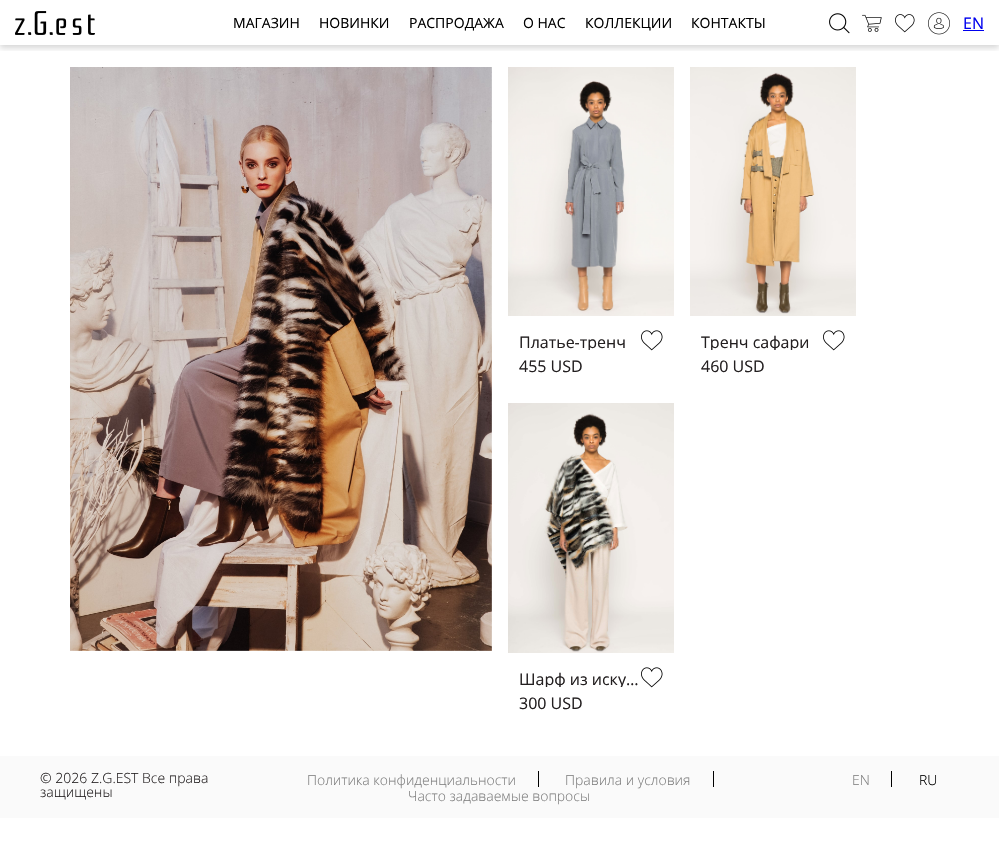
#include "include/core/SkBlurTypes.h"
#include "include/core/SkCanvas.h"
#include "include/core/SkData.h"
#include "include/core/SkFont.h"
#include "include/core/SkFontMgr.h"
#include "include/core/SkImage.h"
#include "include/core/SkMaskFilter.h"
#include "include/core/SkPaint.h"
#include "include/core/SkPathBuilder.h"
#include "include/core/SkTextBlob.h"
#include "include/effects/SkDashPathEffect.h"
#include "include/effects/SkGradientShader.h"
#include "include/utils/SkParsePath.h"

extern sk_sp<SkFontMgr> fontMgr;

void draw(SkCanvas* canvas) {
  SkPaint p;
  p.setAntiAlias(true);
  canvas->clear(SK_ColorWHITE);
  canvas->save();
  canvas->clipRect(SkRect::MakeLTRB(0, 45, 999, 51));
  p.setColor(SkColorSetARGB(41, 0, 0, 0));
  p.setMaskFilter(SkMaskFilter::MakeBlur(kNormal_SkBlurStyle, 3));
  canvas->drawRect(SkRect::MakeLTRB(0, 3, 999, 48), p);
  p.setMaskFilter(nullptr);
  canvas->restore();
  canvas->drawImageRect(SkImages::DeferredFromEncodedData(SkData::MakeFromFileName("images/1.png")), SkRect::MakeLTRB(15, 11, 95, 35), SkSamplingOptions());
  canvas->drawImageRect(SkImages::DeferredFromEncodedData(SkData::MakeFromFileName("images/2.png")), SkRect::MakeLTRB(829, 13, 850, 34), SkSamplingOptions());
  canvas->drawImageRect(SkImages::DeferredFromEncodedData(SkData::MakeFromFileName("images/3.png")), SkRect::MakeLTRB(862, 14, 882, 32), SkSamplingOptions());
  canvas->drawImageRect(SkImages::DeferredFromEncodedData(SkData::MakeFromFileName("images/4.png")), SkRect::MakeLTRB(895, 14, 915, 33), SkSamplingOptions());
  canvas->drawImageRect(SkImages::DeferredFromEncodedData(SkData::MakeFromFileName("images/5.png")), SkRect::MakeLTRB(928, 12, 950, 35), SkSamplingOptions());
  p.setColor(SkColorSetRGB(0, 0, 238));
  canvas->drawRect(SkRect::MakeLTRB(963, 30, 984, 31), p);
  canvas->drawImageRect(SkImages::DeferredFromEncodedData(SkData::MakeFromFileName("images/6.png")), SkRect::MakeLTRB(70, 67, 492, 651), SkSamplingOptions());
  canvas->drawImageRect(SkImages::DeferredFromEncodedData(SkData::MakeFromFileName("images/7.png")), SkRect::MakeLTRB(508, 67, 674, 316), SkSamplingOptions());
  canvas->drawImageRect(SkImages::DeferredFromEncodedData(SkData::MakeFromFileName("images/8.png")), SkRect::MakeLTRB(641, 330, 663, 351), SkSamplingOptions());
  canvas->drawImageRect(SkImages::DeferredFromEncodedData(SkData::MakeFromFileName("images/9.png")), SkRect::MakeLTRB(690, 67, 856, 316), SkSamplingOptions());
  canvas->drawImageRect(SkImages::DeferredFromEncodedData(SkData::MakeFromFileName("images/8.png")), SkRect::MakeLTRB(823, 330, 845, 351), SkSamplingOptions());
  canvas->drawImageRect(SkImages::DeferredFromEncodedData(SkData::MakeFromFileName("images/10.png")), SkRect::MakeLTRB(508, 403, 674, 653), SkSamplingOptions());
  canvas->drawImageRect(SkImages::DeferredFromEncodedData(SkData::MakeFromFileName("images/8.png")), SkRect::MakeLTRB(641, 667, 663, 688), SkSamplingOptions());
  p.setColor(SkColorSetRGB(250, 250, 250));
  canvas->drawRect(SkRect::MakeLTRB(0, 756, 999, 818), p);
  p.setColor(SK_ColorBLACK);
  canvas->drawRect(SkRect::MakeLTRB(538, 771, 539, 787), p);
  canvas->drawRect(SkRect::MakeLTRB(713, 771, 714, 787), p);
  canvas->drawRect(SkRect::MakeLTRB(891, 771, 892, 787), p);
  SkFont font1(fontMgr->matchFamilyStyle("Open Sans", SkFontStyle::Normal()), 14);
  font1.setSubpixel(true);
  canvas->drawString("МАГАЗИН", 233, 28, font1, p);
  canvas->drawString("НОВИНКИ", 319, 28, font1, p);
  canvas->drawString("РАСПРОДАЖА", 409, 28, font1, p);
  canvas->drawString("О НАС", 523, 28, font1, p);
  canvas->drawString("КОЛЛЕКЦИИ", 585, 28, font1, p);
  canvas->drawString("КОНТАКТЫ", 691, 28, font1, p);
  SkFont font2(fontMgr->matchFamilyStyle("Open Sans", SkFontStyle::Normal()), 16);
  font2.setSubpixel(true);
  p.setColor(SkColorSetRGB(0, 0, 238));
  canvas->drawString("EN", 963, 29, font2, p);
  canvas->save();
  canvas->clipRect(SkRect::MakeLTRB(519, 334, 663, 350));
  p.setColor(SkColorSetRGB(35, 31, 32));
  canvas->drawString("Платье-тренч", 519, 348, font2, p);
  canvas->restore();
  canvas->drawString("455 USD", 519, 372, font2, p);
  canvas->save();
  canvas->clipRect(SkRect::MakeLTRB(701, 334, 845, 350));
  canvas->drawString("Тренч сафари", 701, 348, font2, p);
  canvas->restore();
  canvas->drawString("460 USD", 701, 372, font2, p);
  canvas->save();
  canvas->clipRect(SkRect::MakeLTRB(519, 671, 663, 687));
  canvas->drawString("Шарф из иску…", 519, 685, font2, p);
  canvas->restore();
  canvas->drawString("300 USD", 519, 709, font2, p);
  SkFont font3(fontMgr->matchFamilyStyle("Open Sans", SkFontStyle(300, SkFontStyle::kNormal_Width, SkFontStyle::kUpright_Slant)), 14);
  font3.setSubpixel(true);
  canvas->drawString("© 2026 Z.G.EST Все права", 40, 783, font3, p);
  canvas->drawString("защищены", 40, 797, font3, p);
  p.setColor(SkColorSetRGB(127, 127, 127));
  canvas->drawString("Политика конфиденциальности", 307, 785, font3, p);
  canvas->drawString("Правила и условия", 565, 785, font3, p);
  canvas->drawString("Часто задаваемые вопросы", 408, 801, font3, p);
  canvas->drawString("EN", 852, 785, font3, p);
  p.setColor(SK_ColorBLACK);
  canvas->drawString("RU", 919, 785, font3, p);
}
